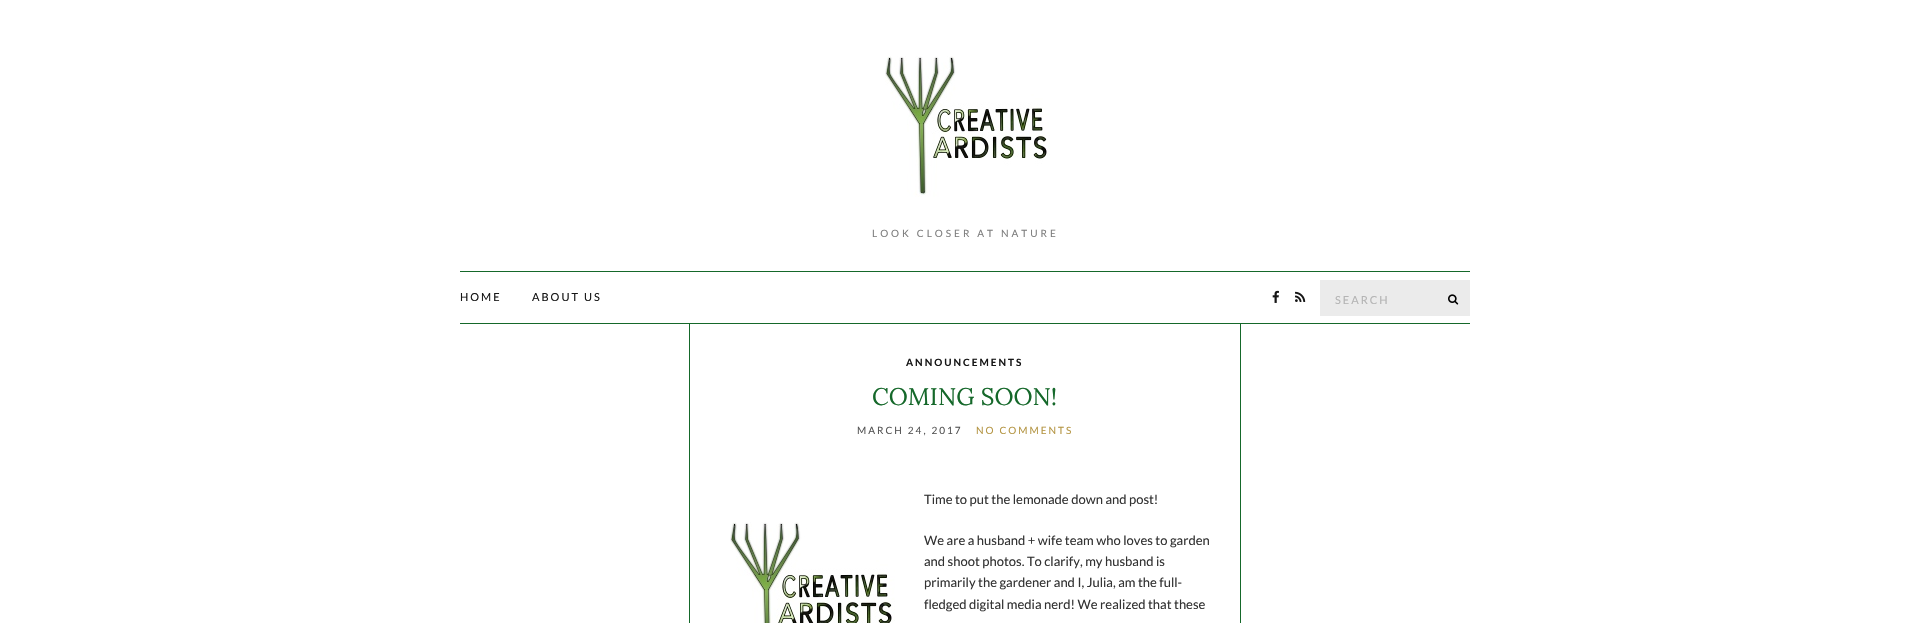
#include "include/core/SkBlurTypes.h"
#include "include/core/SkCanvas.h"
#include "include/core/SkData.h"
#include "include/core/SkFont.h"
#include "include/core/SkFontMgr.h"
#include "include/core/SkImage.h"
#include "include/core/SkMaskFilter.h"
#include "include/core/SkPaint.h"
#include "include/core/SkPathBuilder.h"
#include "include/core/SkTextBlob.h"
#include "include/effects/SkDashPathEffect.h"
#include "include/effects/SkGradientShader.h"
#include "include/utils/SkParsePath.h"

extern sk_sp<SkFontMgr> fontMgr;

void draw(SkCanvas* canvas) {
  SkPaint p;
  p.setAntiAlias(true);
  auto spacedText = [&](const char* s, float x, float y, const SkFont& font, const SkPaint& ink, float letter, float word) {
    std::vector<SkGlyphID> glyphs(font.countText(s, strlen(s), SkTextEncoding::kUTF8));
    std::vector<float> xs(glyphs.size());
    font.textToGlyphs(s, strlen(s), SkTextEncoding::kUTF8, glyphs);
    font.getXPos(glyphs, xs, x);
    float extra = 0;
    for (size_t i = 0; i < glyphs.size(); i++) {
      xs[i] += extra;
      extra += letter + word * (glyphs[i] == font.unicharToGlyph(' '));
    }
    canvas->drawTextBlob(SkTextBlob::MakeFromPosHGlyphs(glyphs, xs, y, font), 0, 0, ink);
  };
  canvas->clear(SK_ColorWHITE);
  canvas->drawImageRect(SkImages::DeferredFromEncodedData(SkData::MakeFromFileName("images/1.png")), SkRect::MakeLTRB(885, 56, 1050, 197), SkSamplingOptions());
  p.setColor(SkColorSetRGB(21, 104, 42));
  canvas->drawRect(SkRect::MakeLTRB(460, 271, 1470, 272), p);
  canvas->drawRect(SkRect::MakeLTRB(460, 323, 1470, 324), p);
  canvas->drawImageRect(SkImages::DeferredFromEncodedData(SkData::MakeFromFileName("images/2.png")), SkRect::MakeLTRB(1272, 290, 1279, 303), SkSamplingOptions());
  canvas->drawImageRect(SkImages::DeferredFromEncodedData(SkData::MakeFromFileName("images/3.png")), SkRect::MakeLTRB(1295, 291, 1306, 302), SkSamplingOptions());
  p.setColor(SkColorSetRGB(235, 235, 235));
  canvas->drawRect(SkRect::MakeLTRB(1320, 280, 1470, 316), p);
  canvas->drawImageRect(SkImages::DeferredFromEncodedData(SkData::MakeFromFileName("images/4.png")), SkRect::MakeLTRB(1448, 294, 1459, 305), SkSamplingOptions());
  p.setColor(SkColorSetRGB(21, 104, 42));
  canvas->drawRect(SkRect::MakeLTRB(689, 324, 690, 623), p);
  canvas->drawImageRect(SkImages::DeferredFromEncodedData(SkData::MakeFromFileName("images/5.png")), SkRect::MakeLTRB(730, 522, 895, 623), SkSamplingOptions());
  canvas->drawRect(SkRect::MakeLTRB(1240, 324, 1241, 623), p);
  SkFont font1(fontMgr->matchFamilyStyle("Lato", SkFontStyle::Normal()), 10);
  font1.setSubpixel(true);
  p.setColor(SkColorSetRGB(126, 126, 126));
  spacedText("LOOK CLOSER AT NATURE", 872, 237, font1, p, 3, 0);
  SkFont font2(fontMgr->matchFamilyStyle("Lato", SkFontStyle::Normal()), 11);
  font2.setSubpixel(true);
  p.setColor(SkColorSetRGB(22, 22, 22));
  spacedText("HOME", 460, 301, font2, p, 2, 0);
  spacedText("ABOUT US", 532, 301, font2, p, 2, 0);
  p.setColor(SkColorSetRGB(180, 180, 180));
  spacedText("SEARCH", 1335, 304, font2, p, 2, 0);
  SkFont font3(fontMgr->matchFamilyStyle("Lato", SkFontStyle::Bold()), 10);
  font3.setSubpixel(true);
  p.setColor(SkColorSetRGB(22, 22, 22));
  spacedText("ANNOUNCEMENTS", 906, 366, font3, p, 2, 0);
  SkFont font4(fontMgr->matchFamilyStyle("Lora", SkFontStyle::Normal()), 24);
  font4.setSubpixel(true);
  p.setColor(SkColorSetRGB(21, 104, 42));
  canvas->drawString("COMING SOON!", 872, 405, font4, p);
  p.setColor(SkColorSetRGB(84, 84, 84));
  spacedText("MARCH 24, 2017", 857, 434, font1, p, 2, 0);
  p.setColor(SkColorSetRGB(180, 149, 67));
  spacedText("NO COMMENTS", 976, 434, font1, p, 2, 0);
  SkFont font5(fontMgr->matchFamilyStyle("Lato", SkFontStyle::Normal()), 13);
  font5.setSubpixel(true);
  p.setColor(SkColorSetRGB(51, 51, 51));
  canvas->drawString("Time to put the lemonade down and post!", 924, 504, font5, p);
  canvas->drawString("We are a husband + wife team who loves to garden", 924, 545, font5, p);
  canvas->drawString("and shoot photos. To clarify, my husband is", 924, 566, font5, p);
  canvas->drawString("primarily the gardener and I, Julia, am the full-", 924, 587, font5, p);
  canvas->drawString("fledged digital media nerd! We realized that these", 924, 609, font5, p);
}
